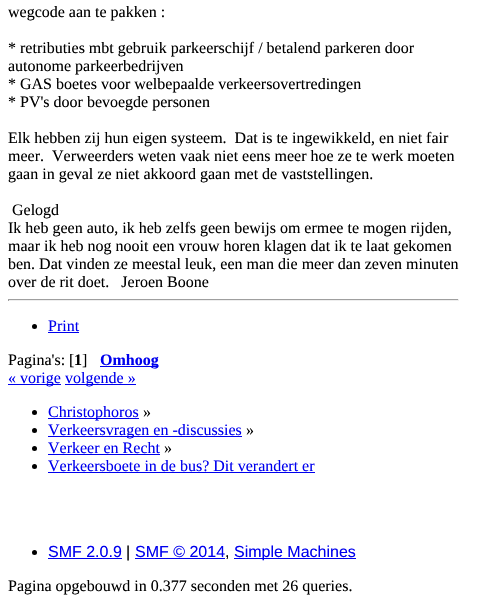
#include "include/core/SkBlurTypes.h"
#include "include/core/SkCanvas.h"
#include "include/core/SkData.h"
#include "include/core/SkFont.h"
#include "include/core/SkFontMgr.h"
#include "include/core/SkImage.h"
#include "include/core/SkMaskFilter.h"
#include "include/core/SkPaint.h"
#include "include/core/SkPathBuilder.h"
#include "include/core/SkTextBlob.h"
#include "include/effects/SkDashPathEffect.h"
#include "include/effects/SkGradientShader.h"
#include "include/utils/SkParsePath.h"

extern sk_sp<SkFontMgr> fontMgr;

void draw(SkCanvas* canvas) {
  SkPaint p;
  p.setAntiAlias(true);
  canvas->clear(SK_ColorWHITE);
  p.setColor(SkColorSetRGB(159, 159, 159));
  canvas->drawRect(SkRect::MakeLTRB(8, 299, 459, 300), p);
  p.setColor(SkColorSetRGB(238, 238, 238));
  canvas->drawRect(SkRect::MakeLTRB(458, 299, 459, 301), p);
  canvas->drawRect(SkRect::MakeLTRB(8, 300, 459, 301), p);
  p.setColor(SkColorSetRGB(159, 159, 159));
  canvas->drawRect(SkRect::MakeLTRB(8, 299, 9, 301), p);
  p.setColor(SK_ColorBLACK);
  canvas->drawCircle(34.5f, 326.5f, 2.5f, p);
  p.setColor(SkColorSetRGB(0, 0, 238));
  canvas->drawRect(SkRect::MakeLTRB(48, 332, 79, 333), p);
  canvas->drawRect(SkRect::MakeLTRB(100, 366, 158, 367), p);
  canvas->drawRect(SkRect::MakeLTRB(8, 384, 61, 385), p);
  canvas->drawRect(SkRect::MakeLTRB(65, 384, 136, 385), p);
  p.setColor(SK_ColorBLACK);
  canvas->drawCircle(34.5f, 412.5f, 2.5f, p);
  p.setColor(SkColorSetRGB(0, 0, 238));
  canvas->drawRect(SkRect::MakeLTRB(48, 418, 139, 419), p);
  p.setColor(SK_ColorBLACK);
  canvas->drawCircle(34.5f, 430.5f, 2.5f, p);
  p.setColor(SkColorSetRGB(0, 0, 238));
  canvas->drawRect(SkRect::MakeLTRB(48, 436, 242, 437), p);
  p.setColor(SK_ColorBLACK);
  canvas->drawCircle(34.5f, 448.5f, 2.5f, p);
  p.setColor(SkColorSetRGB(0, 0, 238));
  canvas->drawRect(SkRect::MakeLTRB(48, 454, 160, 455), p);
  p.setColor(SK_ColorBLACK);
  canvas->drawCircle(34.5f, 466.5f, 2.5f, p);
  p.setColor(SkColorSetRGB(0, 0, 238));
  canvas->drawRect(SkRect::MakeLTRB(48, 472, 315, 473), p);
  p.setColor(SK_ColorBLACK);
  canvas->drawCircle(34.5f, 552.5f, 2.5f, p);
  p.setColor(SkColorSetRGB(0, 0, 238));
  canvas->drawRect(SkRect::MakeLTRB(48, 558, 122, 559), p);
  canvas->drawRect(SkRect::MakeLTRB(135, 558, 225, 559), p);
  canvas->drawRect(SkRect::MakeLTRB(234, 558, 356, 559), p);
  SkFont font1(fontMgr->matchFamilyStyle("Liberation Serif", SkFontStyle::Normal()), 16);
  font1.setSubpixel(true);
  p.setColor(SK_ColorBLACK);
  canvas->drawString("wegcode aan te pakken :", 8, 17, font1, p);
  canvas->drawString("* retributies mbt gebruik parkeerschijf / betalend parkeren door", 8, 53, font1, p);
  canvas->drawString("autonome parkeerbedrijven", 8, 71, font1, p);
  canvas->drawString("* GAS boetes voor welbepaalde verkeersovertredingen", 8, 89, font1, p);
  canvas->drawString("* PV's door bevoegde personen", 8, 107, font1, p);
  canvas->drawString("Elk hebben zij hun eigen systeem.  Dat is te ingewikkeld, en niet fair", 8, 143, font1, p);
  canvas->drawString("meer.  Verweerders weten vaak niet eens meer hoe ze te werk moeten", 8, 161, font1, p);
  canvas->drawString("gaan in geval ze niet akkoord gaan met de vaststellingen.", 8, 179, font1, p);
  canvas->drawString("Gelogd", 12, 215, font1, p);
  canvas->drawString("Ik heb geen auto, ik heb zelfs geen bewijs om ermee te mogen rijden,", 8, 233, font1, p);
  canvas->drawString("maar ik heb nog nooit een vrouw horen klagen dat ik te laat gekomen", 8, 251, font1, p);
  canvas->drawString("ben. Dat vinden ze meestal leuk, een man die meer dan zeven minuten", 8, 269, font1, p);
  canvas->drawString("over de rit doet.   Jeroen Boone", 8, 287, font1, p);
  p.setColor(SkColorSetRGB(0, 0, 238));
  canvas->drawString("Print", 48, 331, font1, p);
  p.setColor(SK_ColorBLACK);
  canvas->drawString("Pagina's: [", 8, 365, font1, p);
  SkFont font2(fontMgr->matchFamilyStyle("Liberation Serif", SkFontStyle::Bold()), 16);
  font2.setSubpixel(true);
  canvas->drawString("1", 74, 365, font2, p);
  canvas->drawString("]", 82, 365, font1, p);
  p.setColor(SkColorSetRGB(0, 0, 238));
  canvas->drawString("Omhoog", 100, 365, font2, p);
  canvas->drawString("« vorige", 8, 383, font1, p);
  canvas->drawString("volgende »", 65, 383, font1, p);
  canvas->drawString("Christophoros", 48, 417, font1, p);
  p.setColor(SK_ColorBLACK);
  canvas->drawString("»", 143, 417, font1, p);
  p.setColor(SkColorSetRGB(0, 0, 238));
  canvas->drawString("Verkeersvragen en -discussies", 48, 435, font1, p);
  p.setColor(SK_ColorBLACK);
  canvas->drawString("»", 246, 435, font1, p);
  p.setColor(SkColorSetRGB(0, 0, 238));
  canvas->drawString("Verkeer en Recht", 48, 453, font1, p);
  p.setColor(SK_ColorBLACK);
  canvas->drawString("»", 164, 453, font1, p);
  p.setColor(SkColorSetRGB(0, 0, 238));
  canvas->drawString("Verkeersboete in de bus? Dit verandert er", 48, 471, font1, p);
  SkFont font3(fontMgr->matchFamilyStyle("Liberation Sans", SkFontStyle::Normal()), 16);
  font3.setSubpixel(true);
  canvas->drawString("SMF 2.0.9", 48, 557, font3, p);
  p.setColor(SK_ColorBLACK);
  canvas->drawString("|", 126, 557, font3, p);
  p.setColor(SkColorSetRGB(0, 0, 238));
  canvas->drawString("SMF © 2014", 135, 557, font3, p);
  canvas->drawString("Simple Machines", 234, 557, font3, p);
  p.setColor(SK_ColorBLACK);
  canvas->drawString(",", 225, 557, font3, p);
  canvas->drawString("Pagina opgebouwd in 0.377 seconden met 26 queries.", 8, 591, font1, p);
}
